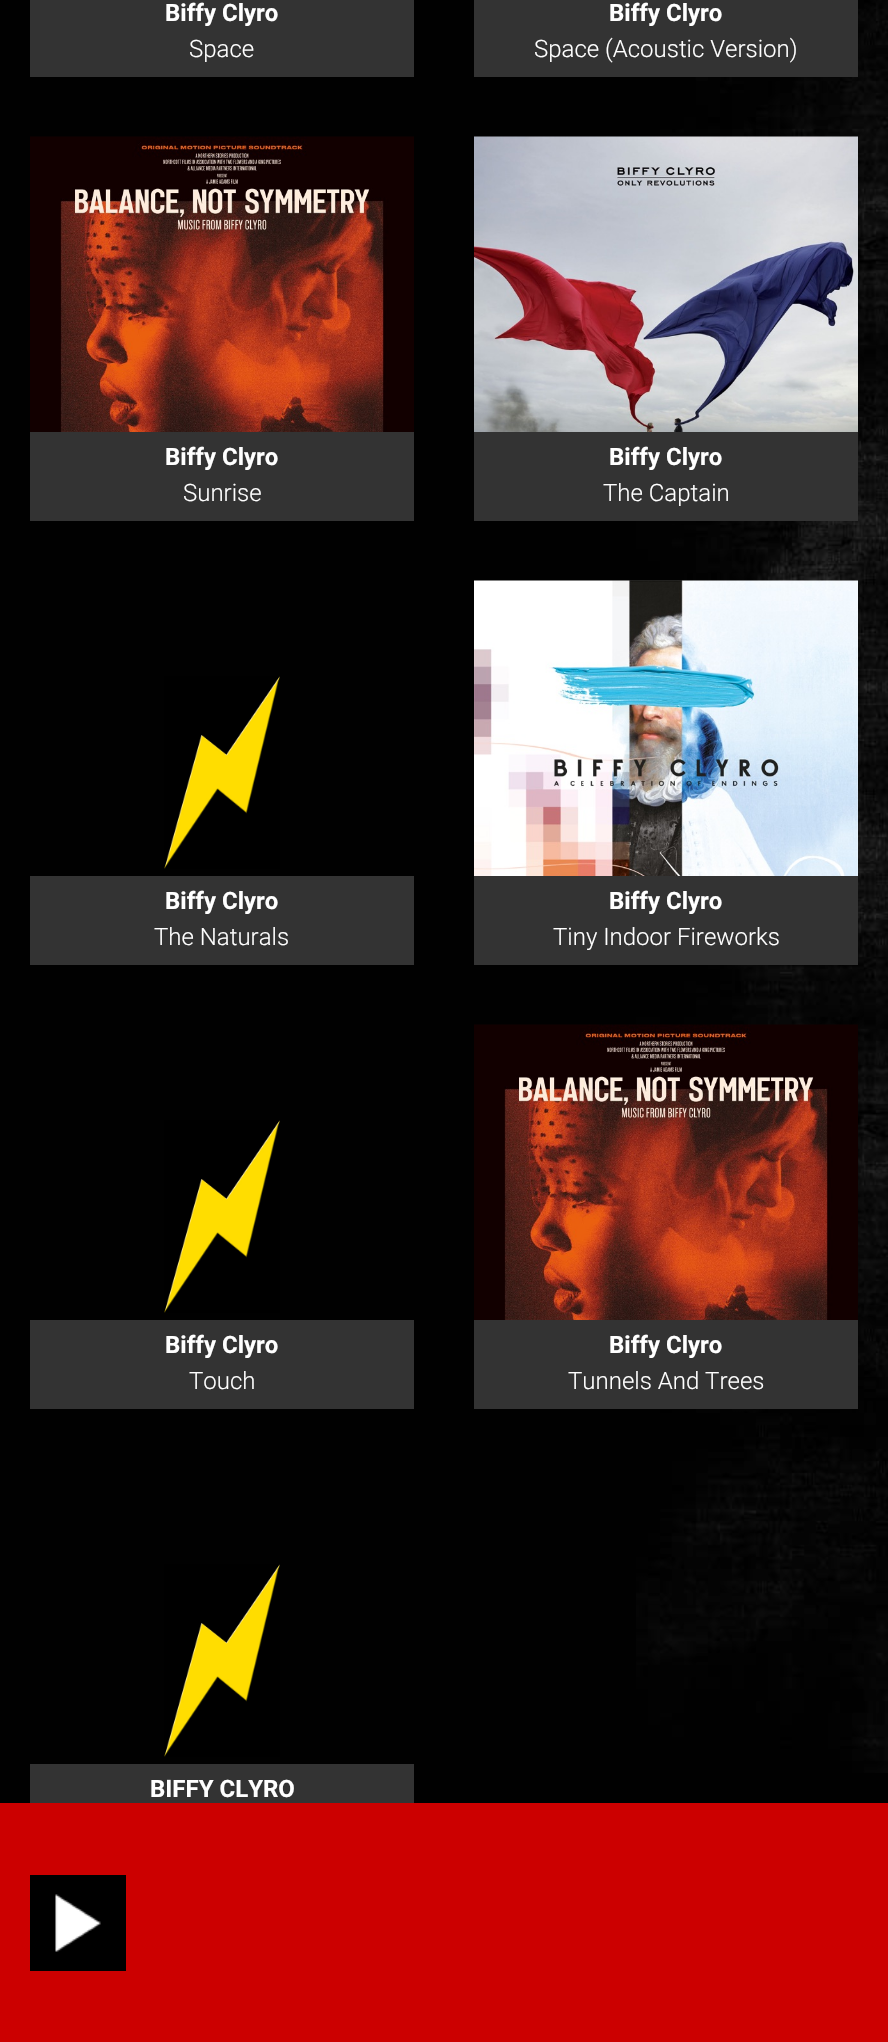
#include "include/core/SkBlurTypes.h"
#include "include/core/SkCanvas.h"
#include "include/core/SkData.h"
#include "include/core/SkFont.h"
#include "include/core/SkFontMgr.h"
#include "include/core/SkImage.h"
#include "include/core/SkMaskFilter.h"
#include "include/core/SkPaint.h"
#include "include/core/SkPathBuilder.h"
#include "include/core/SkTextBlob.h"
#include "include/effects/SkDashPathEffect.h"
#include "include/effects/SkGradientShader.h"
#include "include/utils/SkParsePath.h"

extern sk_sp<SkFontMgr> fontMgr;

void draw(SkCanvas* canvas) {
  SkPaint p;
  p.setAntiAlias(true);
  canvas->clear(SkColorSetRGB(1, 1, 1));
  canvas->drawImageRect(SkImages::DeferredFromEncodedData(SkData::MakeFromFileName("images/1.png")), SkRect::MakeLTRB(636, 0, 888, 1773), SkSamplingOptions());
  p.setColor(SkColorSetRGB(51, 51, 51));
  canvas->drawRect(SkRect::MakeLTRB(30, 0, 414, 77), p);
  canvas->drawRect(SkRect::MakeLTRB(474, 0, 858, 77), p);
  canvas->drawImageRect(SkImages::DeferredFromEncodedData(SkData::MakeFromFileName("images/2.png")), SkRect::MakeLTRB(30, 136, 414, 432), SkSamplingOptions());
  canvas->drawRect(SkRect::MakeLTRB(30, 432, 414, 521), p);
  canvas->drawImageRect(SkImages::DeferredFromEncodedData(SkData::MakeFromFileName("images/3.png")), SkRect::MakeLTRB(474, 136, 858, 432), SkSamplingOptions());
  canvas->drawRect(SkRect::MakeLTRB(474, 432, 858, 521), p);
  canvas->drawImageRect(SkImages::DeferredFromEncodedData(SkData::MakeFromFileName("images/4.png")), SkRect::MakeLTRB(164, 676, 280, 869), SkSamplingOptions());
  canvas->drawRect(SkRect::MakeLTRB(30, 876, 414, 965), p);
  canvas->drawImageRect(SkImages::DeferredFromEncodedData(SkData::MakeFromFileName("images/5.png")), SkRect::MakeLTRB(474, 580, 858, 876), SkSamplingOptions());
  canvas->drawRect(SkRect::MakeLTRB(474, 876, 858, 965), p);
  canvas->drawImageRect(SkImages::DeferredFromEncodedData(SkData::MakeFromFileName("images/4.png")), SkRect::MakeLTRB(164, 1120, 280, 1313), SkSamplingOptions());
  canvas->drawRect(SkRect::MakeLTRB(30, 1320, 414, 1409), p);
  canvas->drawImageRect(SkImages::DeferredFromEncodedData(SkData::MakeFromFileName("images/6.png")), SkRect::MakeLTRB(474, 1024, 858, 1320), SkSamplingOptions());
  canvas->drawRect(SkRect::MakeLTRB(474, 1320, 858, 1409), p);
  canvas->drawImageRect(SkImages::DeferredFromEncodedData(SkData::MakeFromFileName("images/7.png")), SkRect::MakeLTRB(164, 1564, 280, 1757), SkSamplingOptions());
  canvas->drawRect(SkRect::MakeLTRB(30, 1764, 414, 1803), p);
  p.setColor(SkColorSetRGB(204, 0, 0));
  canvas->drawRect(SkRect::MakeLTRB(0, 1803, 888, 2042), p);
  p.setColor(SK_ColorBLACK);
  canvas->drawRect(SkRect::MakeLTRB(30, 1875, 126, 1971), p);
  canvas->drawImageRect(SkImages::DeferredFromEncodedData(SkData::MakeFromFileName("images/8.png")), SkRect::MakeLTRB(55, 1894, 101, 1952), SkSamplingOptions());
  SkFont font1(fontMgr->matchFamilyStyle("Roboto", SkFontStyle::Bold()), 24);
  font1.setSubpixel(true);
  p.setColor(SK_ColorWHITE);
  canvas->drawString("Biffy Clyro", 165, 21, font1, p);
  SkFont font2(fontMgr->matchFamilyStyle("Roboto", SkFontStyle(300, SkFontStyle::kNormal_Width, SkFontStyle::kUpright_Slant)), 24);
  font2.setSubpixel(true);
  canvas->drawString("Space", 189, 57, font2, p);
  canvas->drawString("Biffy Clyro", 609, 21, font1, p);
  canvas->drawString("Space (Acoustic Version)", 534, 57, font2, p);
  canvas->drawString("Biffy Clyro", 165, 465, font1, p);
  canvas->drawString("Sunrise", 183, 501, font2, p);
  canvas->drawString("Biffy Clyro", 609, 465, font1, p);
  canvas->drawString("The Captain", 603, 501, font2, p);
  canvas->drawString("Biffy Clyro", 165, 909, font1, p);
  canvas->drawString("The Naturals", 154, 945, font2, p);
  canvas->drawString("Biffy Clyro", 609, 909, font1, p);
  canvas->drawString("Tiny Indoor Fireworks", 553, 945, font2, p);
  canvas->drawString("Biffy Clyro", 165, 1353, font1, p);
  canvas->drawString("Touch", 189, 1389, font2, p);
  canvas->drawString("Biffy Clyro", 609, 1353, font1, p);
  canvas->drawString("Tunnels And Trees", 568, 1389, font2, p);
  canvas->drawString("BIFFY CLYRO", 150, 1797, font1, p);
}
